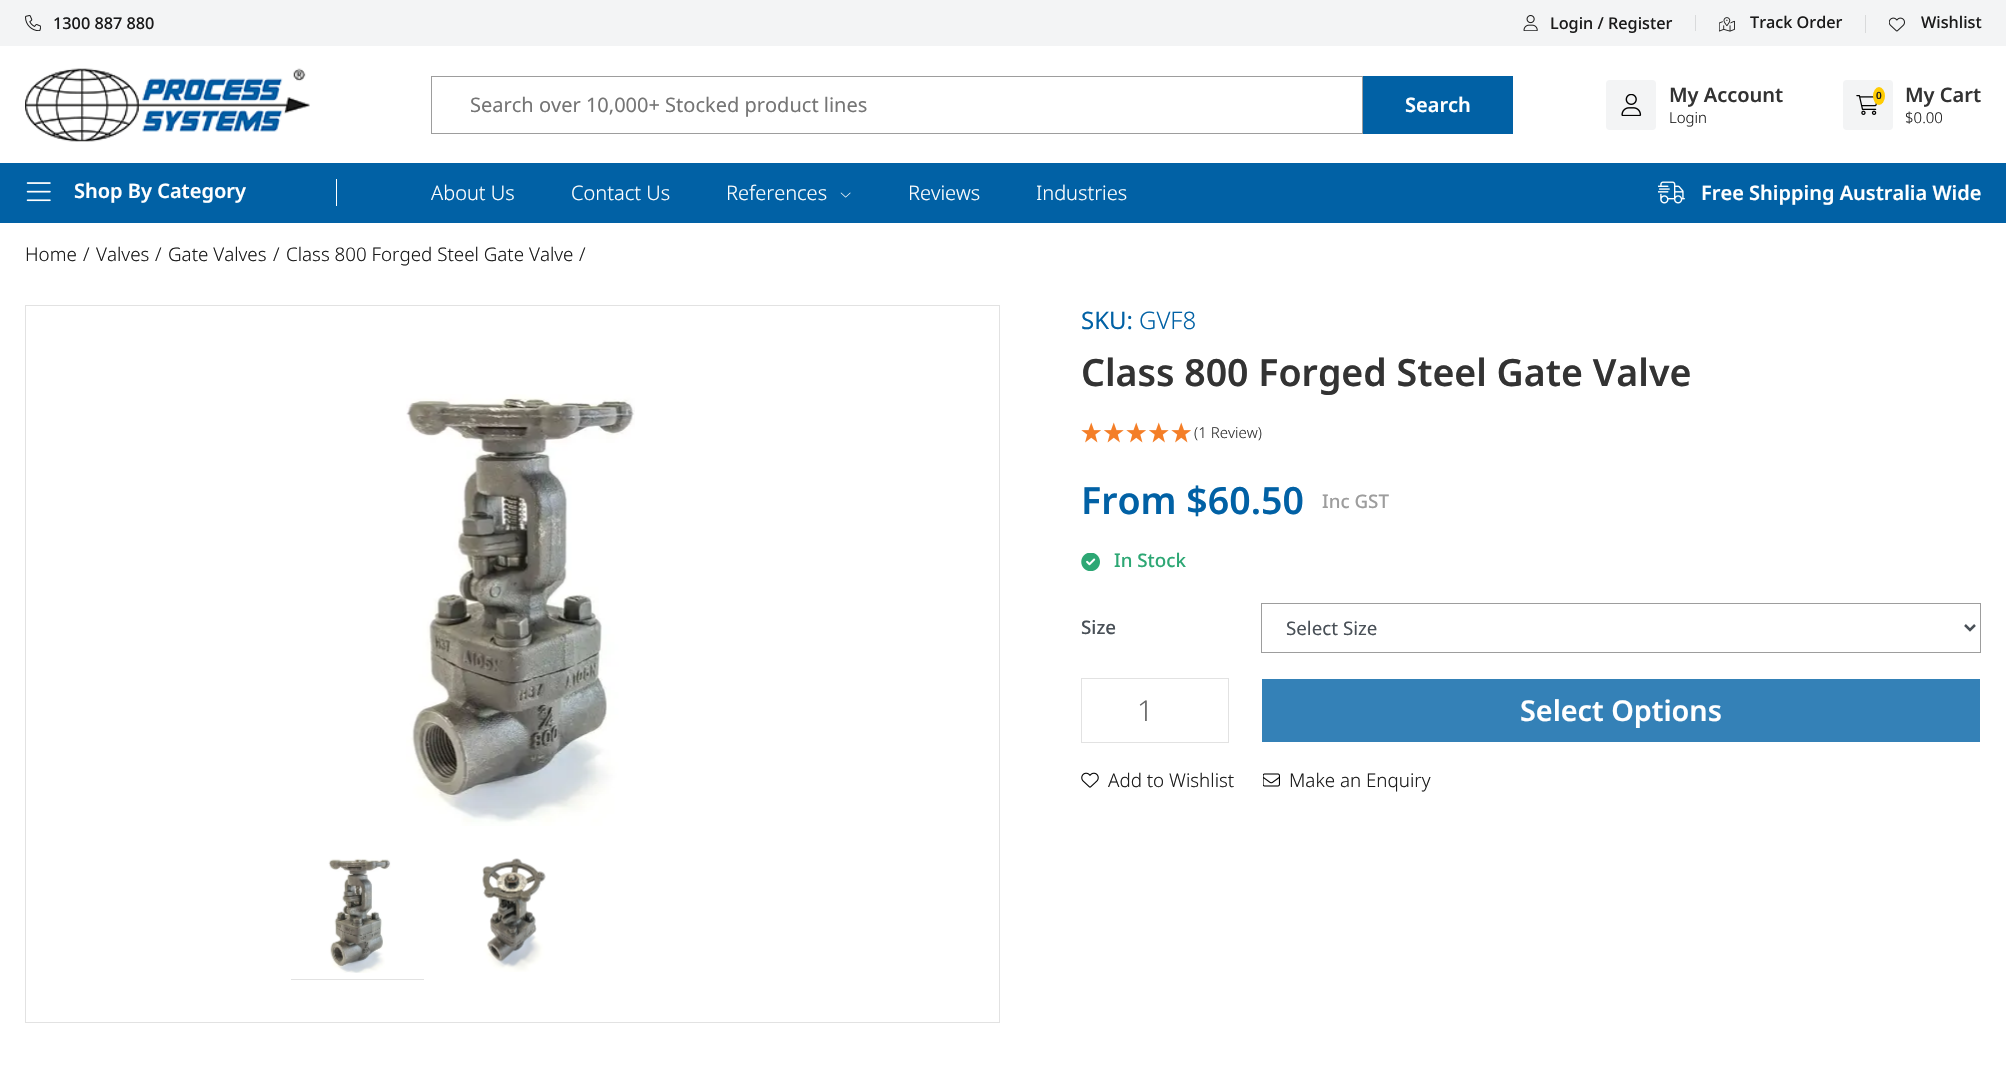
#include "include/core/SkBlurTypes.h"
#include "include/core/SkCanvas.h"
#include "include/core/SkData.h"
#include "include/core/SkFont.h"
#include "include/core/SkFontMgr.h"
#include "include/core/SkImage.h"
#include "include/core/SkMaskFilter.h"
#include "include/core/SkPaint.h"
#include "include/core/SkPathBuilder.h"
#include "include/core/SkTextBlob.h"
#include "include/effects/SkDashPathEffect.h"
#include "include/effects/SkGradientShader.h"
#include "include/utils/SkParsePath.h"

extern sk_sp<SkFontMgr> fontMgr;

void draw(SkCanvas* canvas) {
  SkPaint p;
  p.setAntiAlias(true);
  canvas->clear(SK_ColorWHITE);
  p.setColor(SkColorSetRGB(243, 244, 245));
  canvas->drawRect(SkRect::MakeLTRB(0, 0, 2006, 46), p);
  canvas->drawImageRect(SkImages::DeferredFromEncodedData(SkData::MakeFromFileName("images/1.png")), SkRect::MakeLTRB(25, 15, 41, 31), SkSamplingOptions());
  p.setColor(SkColorSetRGB(217, 218, 219));
  canvas->drawRect(SkRect::MakeLTRB(1695, 15, 1696, 31), p);
  canvas->drawImageRect(SkImages::DeferredFromEncodedData(SkData::MakeFromFileName("images/2.png")), SkRect::MakeLTRB(1523, 15, 1538, 31), SkSamplingOptions());
  canvas->drawRect(SkRect::MakeLTRB(1865, 15, 1866, 33), p);
  canvas->drawImageRect(SkImages::DeferredFromEncodedData(SkData::MakeFromFileName("images/3.png")), SkRect::MakeLTRB(1719, 17, 1735, 32), SkSamplingOptions());
  canvas->drawImageRect(SkImages::DeferredFromEncodedData(SkData::MakeFromFileName("images/4.png")), SkRect::MakeLTRB(1889, 17, 1905, 32), SkSamplingOptions());
  canvas->drawImageRect(SkImages::DeferredFromEncodedData(SkData::MakeFromFileName("images/5.png")), SkRect::MakeLTRB(25, 68, 310, 142), SkSamplingOptions());
  p.setStyle(SkPaint::kStroke_Style);
  p.setStrokeWidth(1);
  p.setColor(SkColorSetRGB(157, 157, 157));
  canvas->drawRect(SkRect::MakeLTRB(431.5f, 76.5f, 1362.5f, 133.5f), p);
  p.setStyle(SkPaint::kFill_Style);
  p.setColor(SkColorSetRGB(1, 97, 165));
  canvas->drawRect(SkRect::MakeLTRB(1363, 76, 1513, 134), p);
  p.setColor(SkColorSetRGB(243, 244, 245));
  canvas->drawRoundRect(SkRect::MakeLTRB(1606, 80, 1656, 130), 4, 4, p);
  canvas->drawImageRect(SkImages::DeferredFromEncodedData(SkData::MakeFromFileName("images/6.png")), SkRect::MakeLTRB(1621, 94, 1642, 116), SkSamplingOptions());
  canvas->drawRoundRect(SkRect::MakeLTRB(1843, 80, 1893, 130), 4, 4, p);
  canvas->drawImageRect(SkImages::DeferredFromEncodedData(SkData::MakeFromFileName("images/7.png")), SkRect::MakeLTRB(1856, 95, 1877, 115), SkSamplingOptions());
  p.setColor(SkColorSetRGB(255, 204, 2));
  canvas->drawOval(SkRect::MakeLTRB(1873, 87, 1885, 105), p);
  p.setColor(SkColorSetRGB(1, 97, 165));
  canvas->drawRect(SkRect::MakeLTRB(0, 163, 2006, 223), p);
  p.setColor(SK_ColorWHITE);
  canvas->drawRect(SkRect::MakeLTRB(336, 179, 337, 206), p);
  canvas->drawImageRect(SkImages::DeferredFromEncodedData(SkData::MakeFromFileName("images/8.png")), SkRect::MakeLTRB(26, 182, 51, 202), SkSamplingOptions());
  canvas->drawImageRect(SkImages::DeferredFromEncodedData(SkData::MakeFromFileName("images/9.png")), SkRect::MakeLTRB(840, 192, 851, 198), SkSamplingOptions());
  canvas->drawImageRect(SkImages::DeferredFromEncodedData(SkData::MakeFromFileName("images/10.png")), SkRect::MakeLTRB(1658, 181, 1685, 204), SkSamplingOptions());
  p.setStyle(SkPaint::kStroke_Style);
  p.setColor(SkColorSetRGB(226, 226, 226));
  canvas->drawRect(SkRect::MakeLTRB(25.5f, 305.5f, 999.5f, 1022.5f), p);
  canvas->drawImageRect(SkImages::DeferredFromEncodedData(SkData::MakeFromFileName("images/11.png")), SkRect::MakeLTRB(406, 394, 635, 826), SkSamplingOptions());
  p.setStyle(SkPaint::kFill_Style);
  canvas->drawRect(SkRect::MakeLTRB(291, 979, 424, 980), p);
  canvas->drawImageRect(SkImages::DeferredFromEncodedData(SkData::MakeFromFileName("images/12.png")), SkRect::MakeLTRB(328, 858, 391, 973), SkSamplingOptions());
  canvas->drawImageRect(SkImages::DeferredFromEncodedData(SkData::MakeFromFileName("images/13.png")), SkRect::MakeLTRB(482, 858, 546, 972), SkSamplingOptions());
  canvas->drawImageRect(SkImages::DeferredFromEncodedData(SkData::MakeFromFileName("images/14.png")), SkRect::MakeLTRB(1081, 422, 1101, 443), SkSamplingOptions());
  canvas->drawImageRect(SkImages::DeferredFromEncodedData(SkData::MakeFromFileName("images/15.png")), SkRect::MakeLTRB(1104, 422, 1124, 443), SkSamplingOptions());
  canvas->drawImageRect(SkImages::DeferredFromEncodedData(SkData::MakeFromFileName("images/14.png")), SkRect::MakeLTRB(1126, 422, 1146, 443), SkSamplingOptions());
  canvas->drawImageRect(SkImages::DeferredFromEncodedData(SkData::MakeFromFileName("images/15.png")), SkRect::MakeLTRB(1149, 422, 1169, 443), SkSamplingOptions());
  canvas->drawImageRect(SkImages::DeferredFromEncodedData(SkData::MakeFromFileName("images/14.png")), SkRect::MakeLTRB(1171, 422, 1191, 443), SkSamplingOptions());
  canvas->drawImageRect(SkImages::DeferredFromEncodedData(SkData::MakeFromFileName("images/16.png")), SkRect::MakeLTRB(1081, 553, 1100, 571), SkSamplingOptions());
  p.setStyle(SkPaint::kStroke_Style);
  p.setColor(SkColorSetRGB(157, 157, 157));
  canvas->drawRect(SkRect::MakeLTRB(1261.5f, 603.5f, 1980.5f, 652.5f), p);
  p.setStrokeWidth(2.5f);
  p.setColor(SkColorSetRGB(73, 80, 87));
  canvas->drawPath(SkPathBuilder().moveTo(1965, 625).lineTo(1970, 630).lineTo(1975, 625).detach(), p);
  p.setStrokeWidth(1);
  p.setColor(SkColorSetRGB(226, 226, 226));
  canvas->drawRect(SkRect::MakeLTRB(1081.5f, 678.5f, 1228.5f, 742.5f), p);
  p.setStyle(SkPaint::kFill_Style);
  p.setColor(SkColorSetRGB(52, 129, 183));
  canvas->drawRect(SkRect::MakeLTRB(1262, 679, 1980, 742), p);
  canvas->drawImageRect(SkImages::DeferredFromEncodedData(SkData::MakeFromFileName("images/17.png")), SkRect::MakeLTRB(1081, 772, 1099, 788), SkSamplingOptions());
  canvas->drawImageRect(SkImages::DeferredFromEncodedData(SkData::MakeFromFileName("images/18.png")), SkRect::MakeLTRB(1263, 773, 1280, 787), SkSamplingOptions());
  SkFont font1(fontMgr->matchFamilyStyle("Noto Sans", SkFontStyle(500, SkFontStyle::kNormal_Width, SkFontStyle::kUpright_Slant)), 16.25f);
  font1.setSubpixel(true);
  p.setColor(SkColorSetRGB(27, 27, 27));
  canvas->drawString("1300 887 880", 53, 29, font1, p);
  canvas->drawString("Login / Register", 1550, 29, font1, p);
  canvas->drawString("Track Order", 1750, 28, font1, p);
  canvas->drawString("Wishlist", 1921, 28, font1, p);
  SkFont font2(fontMgr->matchFamilyStyle("Noto Sans", SkFontStyle::Normal()), 20);
  font2.setSubpixel(true);
  p.setColor(SkColorSetRGB(117, 117, 117));
  canvas->drawString("Search over 10,000+ Stocked product lines", 470, 112, font2, p);
  SkFont font3(fontMgr->matchFamilyStyle("Noto Sans", SkFontStyle(600, SkFontStyle::kNormal_Width, SkFontStyle::kUpright_Slant)), 20);
  font3.setSubpixel(true);
  p.setColor(SK_ColorWHITE);
  canvas->drawString("Search", 1405, 112, font3, p);
  p.setColor(SkColorSetRGB(51, 51, 51));
  canvas->drawString("My Account", 1669, 102, font3, p);
  SkFont font4(fontMgr->matchFamilyStyle("Noto Sans", SkFontStyle(300, SkFontStyle::kNormal_Width, SkFontStyle::kUpright_Slant)), 15);
  font4.setSubpixel(true);
  p.setColor(SkColorSetRGB(27, 27, 27));
  canvas->drawString("Login", 1669, 123, font4, p);
  SkFont font5(fontMgr->matchFamilyStyle("Noto Sans", SkFontStyle(600, SkFontStyle::kNormal_Width, SkFontStyle::kUpright_Slant)), 10);
  font5.setSubpixel(true);
  canvas->drawString("0", 1876, 99, font5, p);
  p.setColor(SkColorSetRGB(51, 51, 51));
  canvas->drawString("My Cart", 1905, 102, font3, p);
  p.setColor(SkColorSetRGB(27, 27, 27));
  canvas->drawString("$0.00", 1905, 123, font4, p);
  p.setColor(SK_ColorWHITE);
  canvas->drawString("Shop By Category", 74, 198, font3, p);
  SkFont font6(fontMgr->matchFamilyStyle("Noto Sans", SkFontStyle(300, SkFontStyle::kNormal_Width, SkFontStyle::kUpright_Slant)), 20);
  font6.setSubpixel(true);
  canvas->drawString("About Us", 431, 200, font6, p);
  canvas->drawString("Contact Us", 571, 200, font6, p);
  canvas->drawString("References", 726, 200, font6, p);
  canvas->drawString("Reviews", 908, 200, font6, p);
  canvas->drawString("Industries", 1036, 200, font6, p);
  canvas->drawString("Free Shipping Australia Wide", 1701, 200, font3, p);
  SkFont font7(fontMgr->matchFamilyStyle("Noto Sans", SkFontStyle(300, SkFontStyle::kNormal_Width, SkFontStyle::kUpright_Slant)), 18.75f);
  font7.setSubpixel(true);
  p.setColor(SkColorSetRGB(27, 27, 27));
  canvas->drawString("Home", 25, 261, font7, p);
  canvas->drawString("/", 83, 261, font7, p);
  canvas->drawString("Valves", 96, 261, font7, p);
  canvas->drawString("/", 155, 261, font7, p);
  canvas->drawString("Gate Valves", 168, 261, font7, p);
  canvas->drawString("/", 273, 261, font7, p);
  canvas->drawString("Class 800 Forged Steel Gate Valve", 286, 261, font7, p);
  canvas->drawString("/", 579, 261, font7, p);
  SkFont font8(fontMgr->matchFamilyStyle("Noto Sans", SkFontStyle::Normal()), 24);
  font8.setSubpixel(true);
  p.setColor(SkColorSetRGB(1, 97, 165));
  canvas->drawString("SKU:", 1081, 329, font8, p);
  SkFont font9(fontMgr->matchFamilyStyle("Noto Sans", SkFontStyle(300, SkFontStyle::kNormal_Width, SkFontStyle::kUpright_Slant)), 24);
  font9.setSubpixel(true);
  canvas->drawString("GVF8", 1139, 329, font9, p);
  SkFont font10(fontMgr->matchFamilyStyle("Noto Sans", SkFontStyle(600, SkFontStyle::kNormal_Width, SkFontStyle::kUpright_Slant)), 37.5f);
  font10.setSubpixel(true);
  p.setColor(SkColorSetRGB(51, 51, 51));
  canvas->drawString("Class 800 Forged Steel Gate Valve", 1081, 386, font10, p);
  canvas->drawString("(1 Review)", 1194, 438, font4, p);
  p.setColor(SkColorSetRGB(1, 97, 165));
  canvas->drawString("From $60.50", 1081, 514, font10, p);
  SkFont font11(fontMgr->matchFamilyStyle("Noto Sans", SkFontStyle(500, SkFontStyle::kNormal_Width, SkFontStyle::kUpright_Slant)), 18.75f);
  font11.setSubpixel(true);
  p.setColor(SkColorSetRGB(157, 157, 157));
  canvas->drawString("Inc GST", 1322, 508, font11, p);
  p.setColor(SkColorSetRGB(45, 167, 116));
  canvas->drawString("In Stock", 1114, 567, font11, p);
  p.setColor(SkColorSetRGB(73, 80, 87));
  canvas->drawString("Size", 1081, 634, font11, p);
  SkFont font12(fontMgr->matchFamilyStyle("Noto Sans", SkFontStyle::Normal()), 18.75f);
  font12.setSubpixel(true);
  canvas->drawString("Select Size", 1286, 635, font12, p);
  SkFont font13(fontMgr->matchFamilyStyle("Noto Sans", SkFontStyle(300, SkFontStyle::kNormal_Width, SkFontStyle::kUpright_Slant)), 28.75f);
  font13.setSubpixel(true);
  p.setColor(SkColorSetRGB(101, 101, 101));
  canvas->drawString("1", 1137, 721, font13, p);
  SkFont font14(fontMgr->matchFamilyStyle("Noto Sans", SkFontStyle(600, SkFontStyle::kNormal_Width, SkFontStyle::kUpright_Slant)), 28.75f);
  font14.setSubpixel(true);
  p.setColor(SK_ColorWHITE);
  canvas->drawString("Select Options", 1520, 721, font14, p);
  p.setColor(SkColorSetRGB(27, 27, 27));
  canvas->drawString("Add to Wishlist", 1108, 787, font7, p);
  canvas->drawString("Make an Enquiry", 1289, 787, font7, p);
}
